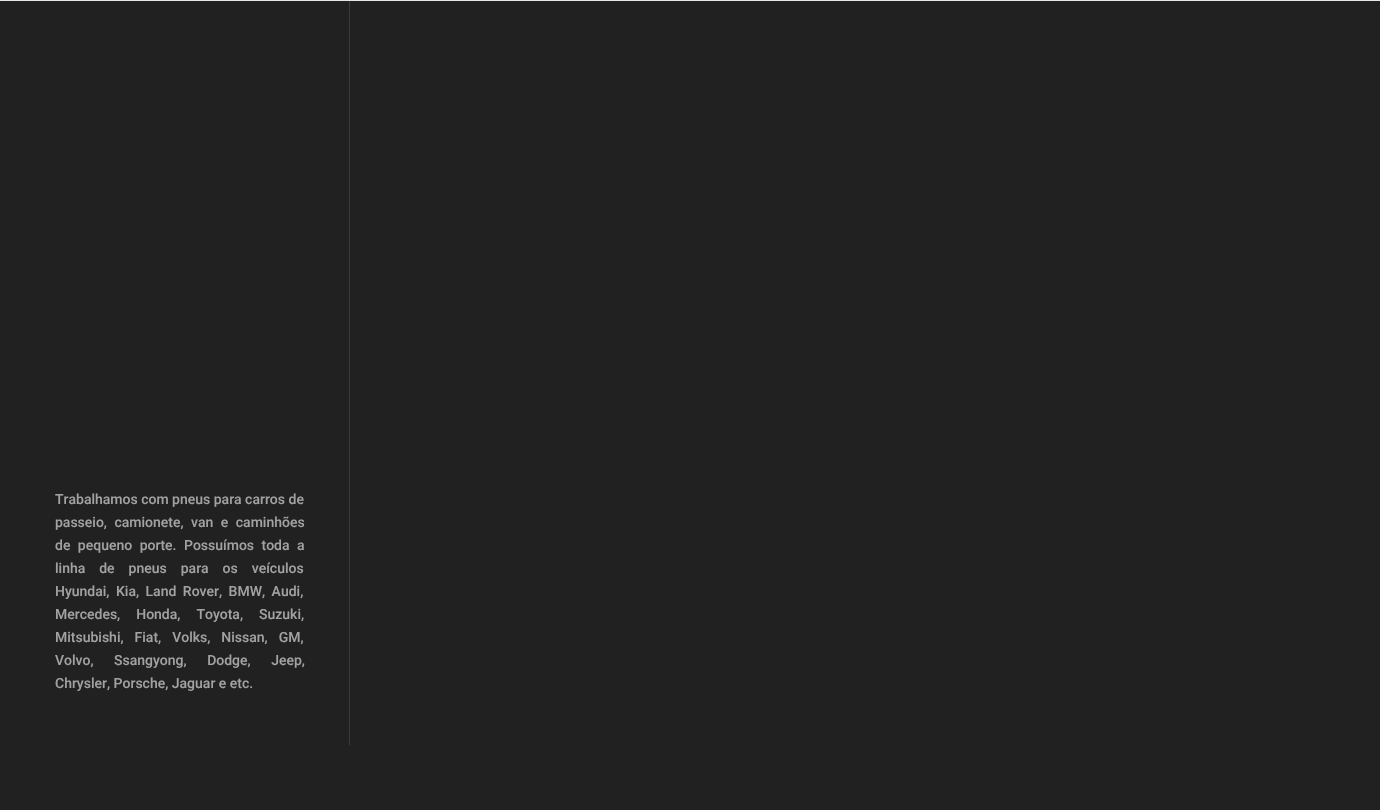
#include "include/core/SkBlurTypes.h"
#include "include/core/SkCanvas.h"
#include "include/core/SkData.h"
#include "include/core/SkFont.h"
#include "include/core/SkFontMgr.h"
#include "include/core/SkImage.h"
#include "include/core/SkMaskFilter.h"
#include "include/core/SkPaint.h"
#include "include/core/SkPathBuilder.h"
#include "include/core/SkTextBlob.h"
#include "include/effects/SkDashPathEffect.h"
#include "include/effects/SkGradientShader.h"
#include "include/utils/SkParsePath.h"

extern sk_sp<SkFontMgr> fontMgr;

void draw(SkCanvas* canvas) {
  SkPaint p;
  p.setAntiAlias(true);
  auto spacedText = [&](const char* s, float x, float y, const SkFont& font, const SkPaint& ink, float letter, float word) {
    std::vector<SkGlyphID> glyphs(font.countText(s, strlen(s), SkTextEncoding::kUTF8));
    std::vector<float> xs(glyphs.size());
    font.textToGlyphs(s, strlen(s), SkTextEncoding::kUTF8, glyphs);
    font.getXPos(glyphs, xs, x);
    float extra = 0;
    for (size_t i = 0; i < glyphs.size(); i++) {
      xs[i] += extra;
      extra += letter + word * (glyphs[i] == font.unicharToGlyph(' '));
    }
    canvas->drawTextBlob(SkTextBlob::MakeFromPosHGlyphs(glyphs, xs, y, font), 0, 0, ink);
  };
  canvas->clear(SkColorSetRGB(33, 33, 33));
  p.setColor(SkColorSetRGB(59, 59, 59));
  canvas->drawRect(SkRect::MakeLTRB(349, 0, 350, 745), p);
  p.setColor(SkColorSetRGB(231, 231, 231));
  canvas->drawRect(SkRect::MakeLTRB(0, 0, 1380, 1), p);
  SkFont font1(fontMgr->matchFamilyStyle("Roboto", SkFontStyle(500, SkFontStyle::kNormal_Width, SkFontStyle::kUpright_Slant)), 14);
  font1.setSubpixel(true);
  p.setColor(SkColorSetRGB(162, 162, 162));
  canvas->drawString("Trabalhamos com pneus para carros de", 55, 504, font1, p);
  spacedText("passeio, camionete, van e caminhões", 55, 527, font1, p, 0, 4);
  spacedText("de pequeno porte. Possuímos toda a", 55, 550, font1, p, 0, 4);
  spacedText("linha de pneus para os veículos", 55, 573, font1, p, 0, 10.5f);
  spacedText("Hyundai, Kia, Land Rover, BMW, Audi,", 55, 596, font1, p, 0, 3);
  spacedText("Mercedes, Honda, Toyota, Suzuki,", 55, 619, font1, p, 0, 12.5f);
  spacedText("Mitsubishi, Fiat, Volks, Nissan, GM,", 55, 642, font1, p, 0, 7.5f);
  spacedText("Volvo, Ssangyong, Dodge, Jeep,", 55, 665, font1, p, 0, 17);
  canvas->drawString("Chrysler, Porsche, Jaguar e etc.", 55, 688, font1, p);
}
